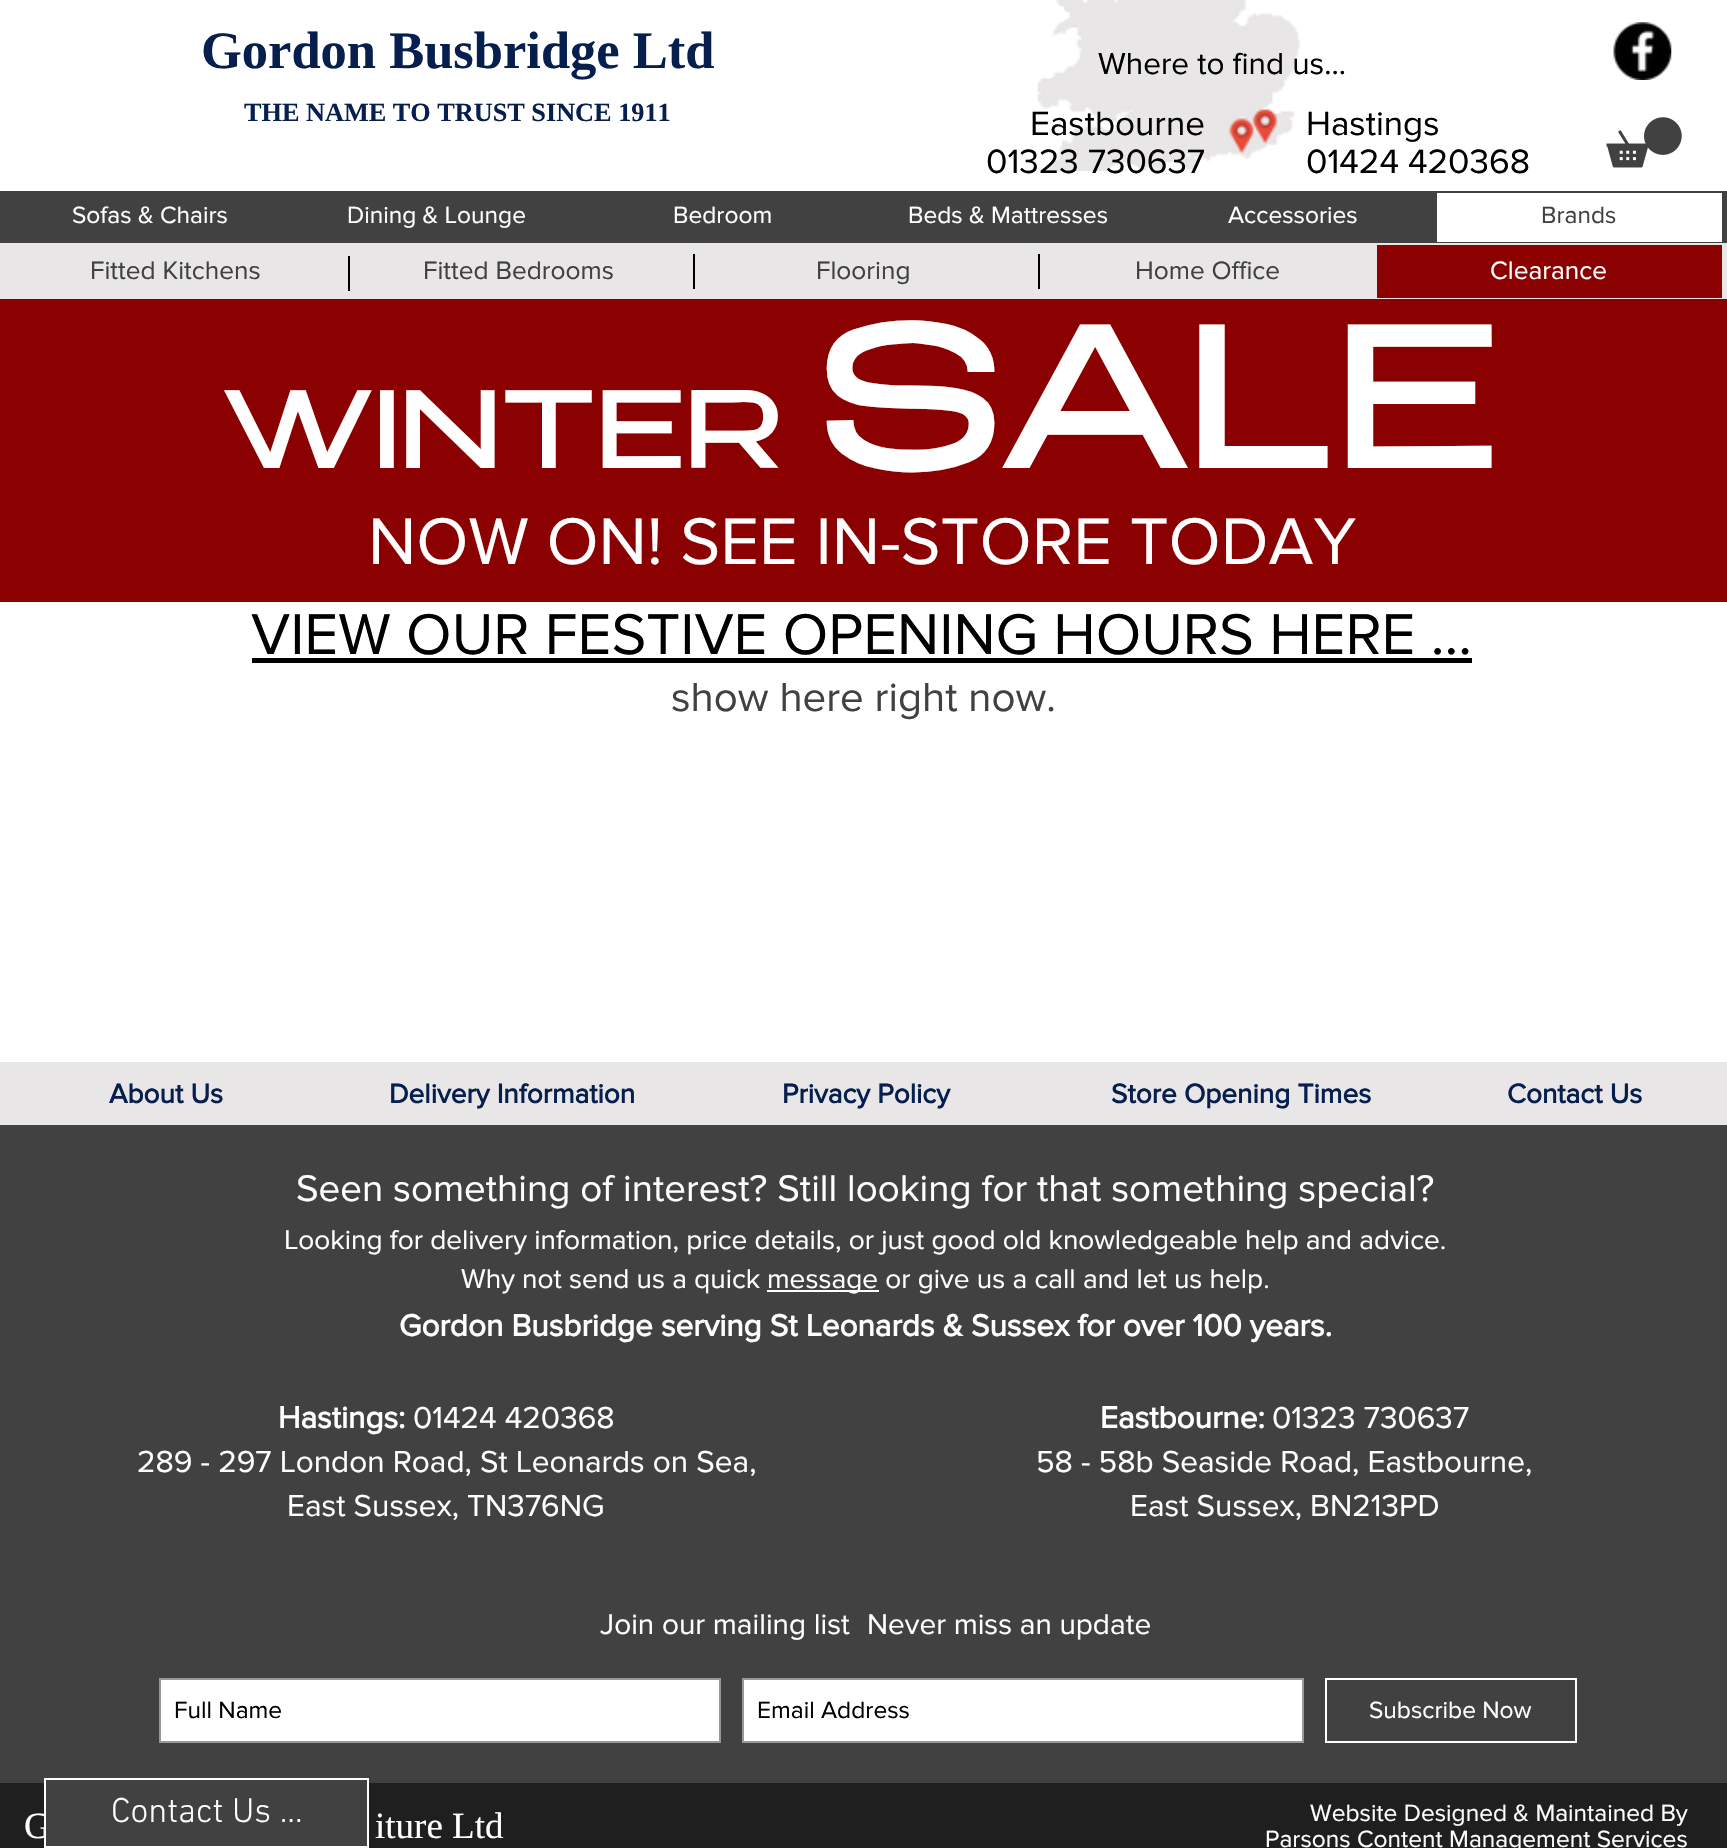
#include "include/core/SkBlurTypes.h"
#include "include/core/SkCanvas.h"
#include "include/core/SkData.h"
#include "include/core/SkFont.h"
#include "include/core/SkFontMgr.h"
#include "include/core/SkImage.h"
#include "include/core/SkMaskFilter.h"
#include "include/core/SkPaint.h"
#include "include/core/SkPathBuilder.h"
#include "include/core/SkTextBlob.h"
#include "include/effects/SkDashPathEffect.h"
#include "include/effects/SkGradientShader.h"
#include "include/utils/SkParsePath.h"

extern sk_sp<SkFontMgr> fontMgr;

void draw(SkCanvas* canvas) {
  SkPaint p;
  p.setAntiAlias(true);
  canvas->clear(SK_ColorWHITE);
  canvas->drawImageRect(SkImages::DeferredFromEncodedData(SkData::MakeFromFileName("images/1.png")), SkRect::MakeLTRB(1037, 0, 1301, 171), SkSamplingOptions());
  canvas->drawImageRect(SkImages::DeferredFromEncodedData(SkData::MakeFromFileName("images/2.png")), SkRect::MakeLTRB(1613, 22, 1672, 80), SkSamplingOptions());
  canvas->drawImageRect(SkImages::DeferredFromEncodedData(SkData::MakeFromFileName("images/3.png")), SkRect::MakeLTRB(1606, 117, 1682, 168), SkSamplingOptions());
  p.setColor(SkColorSetRGB(65, 65, 65));
  canvas->drawRect(SkRect::MakeLTRB(0, 191, 1727, 243), p);
  p.setColor(SK_ColorWHITE);
  canvas->drawRect(SkRect::MakeLTRB(1437, 193, 1722, 242), p);
  p.setColor(SkColorSetRGB(232, 230, 230));
  canvas->drawRect(SkRect::MakeLTRB(0, 243, 1727, 299), p);
  p.setColor(SK_ColorBLACK);
  canvas->drawRect(SkRect::MakeLTRB(348, 256, 350, 291), p);
  canvas->drawRect(SkRect::MakeLTRB(693, 254, 695, 289), p);
  canvas->drawRect(SkRect::MakeLTRB(1038, 254, 1040, 289), p);
  p.setColor(SkColorSetRGB(139, 0, 0));
  canvas->drawRect(SkRect::MakeLTRB(1377, 245, 1722, 298), p);
  canvas->drawRect(SkRect::MakeLTRB(0, 299, 1727, 602), p);
  p.setColor(SK_ColorBLACK);
  canvas->drawRect(SkRect::MakeLTRB(252, 658, 1472, 663), p);
  p.setColor(SkColorSetRGB(232, 230, 230));
  canvas->drawRect(SkRect::MakeLTRB(0, 1062, 1727, 1125), p);
  p.setColor(SkColorSetRGB(65, 65, 65));
  canvas->drawRect(SkRect::MakeLTRB(0, 1125, 1727, 1783), p);
  p.setColor(SK_ColorWHITE);
  canvas->drawRect(SkRect::MakeLTRB(767, 1290, 879, 1292), p);
  canvas->drawRect(SkRect::MakeLTRB(160, 1679, 720, 1742), p);
  p.setStyle(SkPaint::kStroke_Style);
  p.setStrokeWidth(2);
  p.setColor(SkColorSetRGB(153, 153, 151));
  canvas->drawRect(SkRect::MakeLTRB(160, 1679, 720, 1742), p);
  p.setStyle(SkPaint::kFill_Style);
  p.setColor(SK_ColorWHITE);
  canvas->drawRect(SkRect::MakeLTRB(743, 1679, 1303, 1742), p);
  p.setStyle(SkPaint::kStroke_Style);
  p.setColor(SkColorSetRGB(153, 153, 151));
  canvas->drawRect(SkRect::MakeLTRB(743, 1679, 1303, 1742), p);
  p.setColor(SK_ColorWHITE);
  canvas->drawRect(SkRect::MakeLTRB(1326, 1679, 1576, 1742), p);
  p.setStyle(SkPaint::kFill_Style);
  p.setColor(SkColorSetRGB(31, 31, 31));
  canvas->drawRect(SkRect::MakeLTRB(0, 1783, 1727, 1848), p);
  SkFont font1(fontMgr->matchFamilyStyle("Liberation Serif", SkFontStyle::Bold()), 52.5f);
  font1.setSubpixel(true);
  p.setColor(SkColorSetRGB(7, 31, 78));
  canvas->drawString("Gordon Busbridge Ltd", 201, 68, font1, p);
  SkFont font2(fontMgr->matchFamilyStyle("Liberation Serif", SkFontStyle::Bold()), 26.25f);
  font2.setSubpixel(true);
  canvas->drawString("THE NAME TO TRUST SINCE 1911", 244, 121, font2, p);
  SkFont font3(fontMgr->matchFamilyStyle("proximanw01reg", SkFontStyle::Normal()), 31.5f);
  font3.setSubpixel(true);
  p.setColor(SK_ColorBLACK);
  canvas->drawString("Where to find us...", 1098, 74, font3, p);
  SkFont font4(fontMgr->matchFamilyStyle("proximanw01reg", SkFontStyle::Normal()), 35);
  font4.setSubpixel(true);
  canvas->drawString("Eastbourne", 1030, 135, font4, p);
  canvas->drawString("01323 730637", 986, 173, font4, p);
  canvas->drawString("Hastings", 1306, 135, font4, p);
  canvas->drawString("01424 420368", 1306, 173, font4, p);
  SkFont font5(fontMgr->matchFamilyStyle("proximanw01reg", SkFontStyle::Normal()), 24.5f);
  font5.setSubpixel(true);
  p.setColor(SK_ColorWHITE);
  canvas->drawString("Sofas & Chairs", 72, 223, font5, p);
  canvas->drawString("Dining & Lounge", 347, 223, font5, p);
  canvas->drawString("Bedroom", 673, 223, font5, p);
  canvas->drawString("Beds & Mattresses", 908, 223, font5, p);
  canvas->drawString("Accessories", 1228, 223, font5, p);
  p.setColor(SkColorSetRGB(65, 65, 65));
  canvas->drawString("Brands", 1541, 223, font5, p);
  SkFont font6(fontMgr->matchFamilyStyle("proximanw01reg", SkFontStyle::Normal()), 26.25f);
  font6.setSubpixel(true);
  canvas->drawString("Fitted Kitchens", 90, 279, font6, p);
  canvas->drawString("Fitted Bedrooms", 423, 279, font6, p);
  canvas->drawString("Flooring", 816, 279, font6, p);
  canvas->drawString("Home Office", 1135, 279, font6, p);
  p.setColor(SK_ColorWHITE);
  canvas->drawString("Clearance", 1490, 279, font6, p);
  SkFont font7(fontMgr->matchFamilyStyle("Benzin", SkFontStyle::Normal()), 105);
  font7.setSubpixel(true);
  canvas->drawString("WINTER", 222, 468, font7, p);
  SkFont font8(fontMgr->matchFamilyStyle("Benzin", SkFontStyle::Normal()), 194);
  font8.setSubpixel(true);
  canvas->drawString("SALE", 819, 468, font8, p);
  SkFont font9(fontMgr->matchFamilyStyle("proximanw01reg", SkFontStyle::Normal()), 68.25f);
  font9.setSubpixel(true);
  canvas->drawString("NOW ON! SEE IN-STORE TODAY", 368, 564, font9, p);
  SkFont font10(fontMgr->matchFamilyStyle("proximanw01reg", SkFontStyle::Normal()), 59.5f);
  font10.setSubpixel(true);
  p.setColor(SK_ColorBLACK);
  canvas->drawString("VIEW OUR FESTIVE OPENING HOURS HERE ...", 251, 654, font10, p);
  SkFont font11(fontMgr->matchFamilyStyle("proximanw01reg", SkFontStyle::Normal()), 42);
  font11.setSubpixel(true);
  p.setColor(SkColorSetRGB(65, 65, 65));
  canvas->drawString("show here right now.", 671, 711, font11, p);
  SkFont font12(fontMgr->matchFamilyStyle("proximanw01reg", SkFontStyle::Bold()), 28);
  font12.setSubpixel(true);
  p.setColor(SkColorSetRGB(7, 31, 78));
  canvas->drawString("About Us", 109, 1103, font12, p);
  canvas->drawString("Delivery Information", 389, 1103, font12, p);
  canvas->drawString("Privacy Policy", 782, 1103, font12, p);
  canvas->drawString("Store Opening Times", 1111, 1103, font12, p);
  canvas->drawString("Contact Us", 1507, 1103, font12, p);
  SkFont font13(fontMgr->matchFamilyStyle("proximanw01reg", SkFontStyle::Normal()), 38.5f);
  font13.setSubpixel(true);
  p.setColor(SK_ColorWHITE);
  canvas->drawString("Seen something of interest? Still looking for that something special?", 296, 1201, font13, p);
  SkFont font14(fontMgr->matchFamilyStyle("proximanw01reg", SkFontStyle::Normal()), 28);
  font14.setSubpixel(true);
  canvas->drawString("Looking for delivery information, price details, or just good old knowledgeable help and advice.", 284, 1249, font14, p);
  canvas->drawString("Why not send us a quick", 461, 1288, font14, p);
  canvas->drawString("message or give us a call and let us help.", 767, 1288, font14, p);
  SkFont font15(fontMgr->matchFamilyStyle("proximanw01reg", SkFontStyle::Bold()), 31.5f);
  font15.setSubpixel(true);
  canvas->drawString("Gordon Busbridge serving St Leonards & Sussex for over 100 years.", 399, 1336, font15, p);
  canvas->drawString("Hastings:", 278, 1428, font15, p);
  canvas->drawString("01424 420368", 413, 1428, font3, p);
  canvas->drawString("289 - 297 London Road, St Leonards on Sea,", 137, 1472, font3, p);
  canvas->drawString("East Sussex, TN376NG", 287, 1516, font3, p);
  canvas->drawString("Eastbourne:", 1100, 1428, font15, p);
  canvas->drawString("01323 730637", 1272, 1428, font3, p);
  canvas->drawString("58 - 58b Seaside Road, Eastbourne,", 1036, 1472, font3, p);
  canvas->drawString("East Sussex, BN213PD", 1130, 1516, font3, p);
  SkFont font16(fontMgr->matchFamilyStyle("proximanw01reg", SkFontStyle::Normal()), 29.75f);
  font16.setSubpixel(true);
  canvas->drawString("Join our mailing list", 600, 1634, font16, p);
  canvas->drawString("Never miss an update", 867, 1634, font16, p);
  p.setColor(SK_ColorBLACK);
  canvas->drawString("Full Name", 174, 1718, font5, p);
  canvas->drawString("Email Address", 757, 1718, font5, p);
  p.setColor(SK_ColorWHITE);
  canvas->drawString("Subscribe Now", 1369, 1718, font5, p);
  SkFont font17(fontMgr->matchFamilyStyle("Liberation Serif", SkFontStyle::Normal()), 37);
  font17.setSubpixel(true);
  canvas->drawString("G", 24, 1838, font17, p);
  canvas->drawString("iture Ltd", 375, 1838, font17, p);
  canvas->drawString("Website Designed & Maintained By", 1310, 1821, font5, p);
  canvas->drawString("Parsons Content Management Services", 1265, 1847, font5, p);
  p.setColor(SkColorSetRGB(65, 65, 65));
  canvas->drawRect(SkRect::MakeLTRB(46, 1783, 367, 1846), p);
  p.setStyle(SkPaint::kStroke_Style);
  p.setColor(SK_ColorWHITE);
  canvas->drawRect(SkRect::MakeLTRB(45, 1779, 368, 1847), p);
  SkFont font18(fontMgr->matchFamilyStyle("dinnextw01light", SkFontStyle(300, SkFontStyle::kNormal_Width, SkFontStyle::kUpright_Slant)), 35);
  font18.setSubpixel(true);
  p.setStyle(SkPaint::kFill_Style);
  canvas->drawString("Contact Us ...", 111, 1822, font18, p);
}
